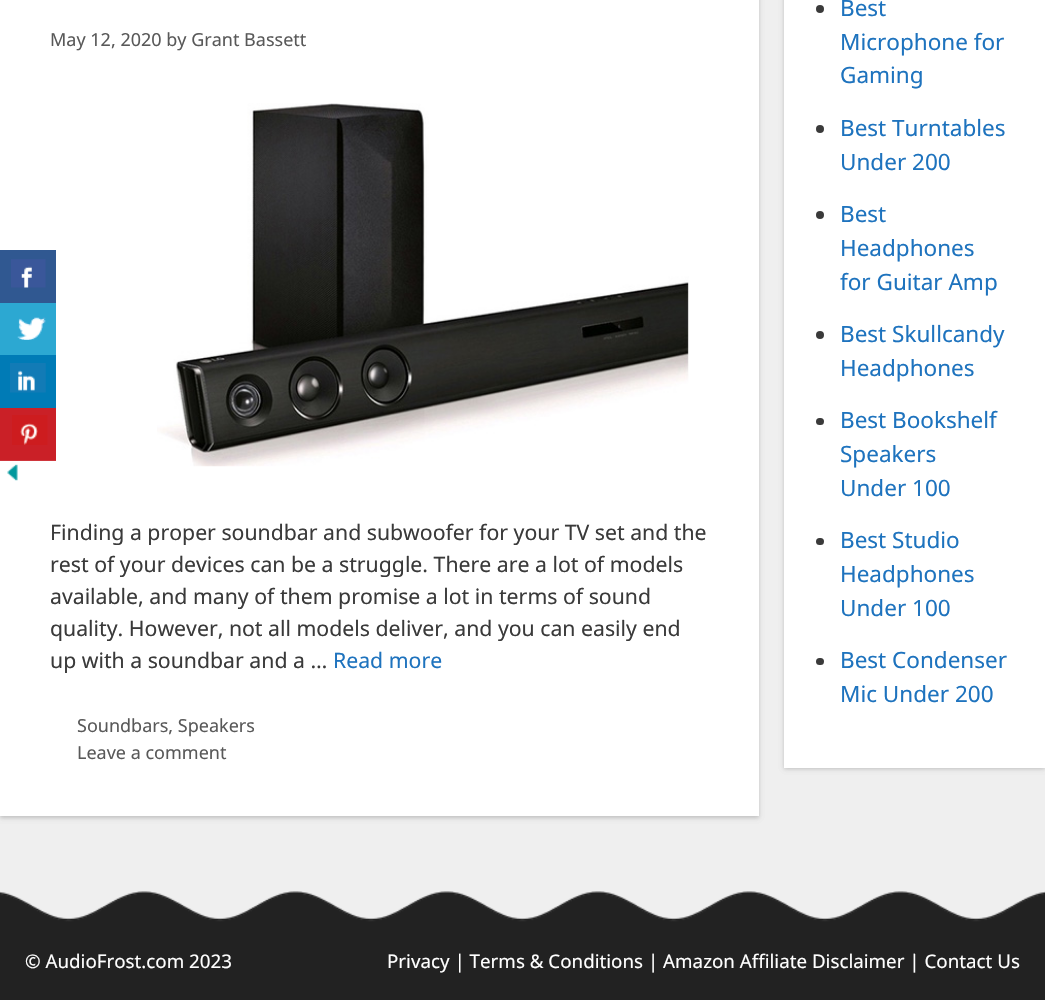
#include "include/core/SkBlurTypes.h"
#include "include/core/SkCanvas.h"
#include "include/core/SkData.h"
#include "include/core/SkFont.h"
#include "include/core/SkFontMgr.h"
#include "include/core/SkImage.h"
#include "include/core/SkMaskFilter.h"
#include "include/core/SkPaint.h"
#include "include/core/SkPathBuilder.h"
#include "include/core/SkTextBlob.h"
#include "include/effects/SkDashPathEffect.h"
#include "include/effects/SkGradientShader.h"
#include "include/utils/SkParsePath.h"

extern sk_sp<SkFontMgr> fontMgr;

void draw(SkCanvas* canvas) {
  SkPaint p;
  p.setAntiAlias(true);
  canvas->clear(SkColorSetRGB(239, 239, 239));
  p.setColor(SkColorSetARGB(26, 0, 0, 0));
  p.setMaskFilter(SkMaskFilter::MakeBlur(kNormal_SkBlurStyle, 2));
  canvas->drawRect(SkRect::MakeLTRB(0, -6, 759, 818), p);
  p.setMaskFilter(nullptr);
  p.setMaskFilter(SkMaskFilter::MakeBlur(kNormal_SkBlurStyle, 2));
  canvas->drawRect(SkRect::MakeLTRB(0, -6, 759, 818), p);
  p.setMaskFilter(nullptr);
  p.setColor(SK_ColorWHITE);
  canvas->drawRect(SkRect::MakeLTRB(0, 0, 759, 816), p);
  p.setColor(SkColorSetRGB(48, 88, 145));
  canvas->drawRect(SkRect::MakeLTRB(0, 250, 56, 303), p);
  canvas->drawImageRect(SkImages::DeferredFromEncodedData(SkData::MakeFromFileName("images/1.png")), SkRect::MakeLTRB(11, 259, 46, 288), SkSamplingOptions());
  p.setColor(SkColorSetRGB(44, 168, 210));
  canvas->drawRect(SkRect::MakeLTRB(0, 303, 56, 355), p);
  canvas->drawImageRect(SkImages::DeferredFromEncodedData(SkData::MakeFromFileName("images/2.png")), SkRect::MakeLTRB(17, 317, 46, 340), SkSamplingOptions());
  p.setColor(SkColorSetRGB(0, 123, 182));
  canvas->drawRect(SkRect::MakeLTRB(0, 355, 56, 408), p);
  canvas->drawImageRect(SkImages::DeferredFromEncodedData(SkData::MakeFromFileName("images/3.png")), SkRect::MakeLTRB(10, 363, 46, 393), SkSamplingOptions());
  p.setColor(SkColorSetRGB(202, 32, 39));
  canvas->drawRect(SkRect::MakeLTRB(0, 408, 56, 460), p);
  p.setColor(SkColorSetRGB(207, 54, 61));
  canvas->drawRect(SkRect::MakeLTRB(0, 460, 56, 461), p);
  canvas->drawImageRect(SkImages::DeferredFromEncodedData(SkData::MakeFromFileName("images/4.png")), SkRect::MakeLTRB(12, 415, 48, 445), SkSamplingOptions());
  canvas->drawImageRect(SkImages::DeferredFromEncodedData(SkData::MakeFromFileName("images/5.png")), SkRect::MakeLTRB(7, 464, 18, 481), SkSamplingOptions());
  canvas->drawImageRect(SkImages::DeferredFromEncodedData(SkData::MakeFromFileName("images/6.png")), SkRect::MakeLTRB(157, 103, 689, 467), SkSamplingOptions());
  p.setColor(SkColorSetARGB(26, 0, 0, 0));
  p.setMaskFilter(SkMaskFilter::MakeBlur(kNormal_SkBlurStyle, 2));
  canvas->drawRect(SkRect::MakeLTRB(784, -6, 1045, 769), p);
  p.setMaskFilter(nullptr);
  p.setMaskFilter(SkMaskFilter::MakeBlur(kNormal_SkBlurStyle, 2));
  canvas->drawRect(SkRect::MakeLTRB(784, -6, 1045, 769), p);
  p.setMaskFilter(nullptr);
  p.setColor(SK_ColorWHITE);
  canvas->drawRect(SkRect::MakeLTRB(784, 0, 1045, 768), p);
  p.setColor(SkColorSetRGB(58, 58, 58));
  canvas->drawCircle(820, 9, 4, p);
  canvas->drawCircle(820, 129, 4, p);
  canvas->drawCircle(820, 215, 4, p);
  canvas->drawCircle(820, 335, 4, p);
  canvas->drawRoundRect(SkRect::MakeLTRB(816, 418, 824, 425), 3.5f, 3.5f, p);
  canvas->drawRoundRect(SkRect::MakeLTRB(816, 538, 824, 545), 3.5f, 3.5f, p);
  canvas->drawRoundRect(SkRect::MakeLTRB(816, 658, 824, 665), 3.5f, 3.5f, p);
  canvas->drawImageRect(SkImages::DeferredFromEncodedData(SkData::MakeFromFileName("images/7.png")), SkRect::MakeLTRB(0, 891, 1045, 923), SkSamplingOptions());
  p.setColor(SkColorSetRGB(34, 34, 34));
  canvas->drawRect(SkRect::MakeLTRB(0, 923, 1045, 1000), p);
  SkFont font1(fontMgr->matchFamilyStyle("Noto Sans", SkFontStyle::Normal()), 18);
  font1.setSubpixel(true);
  p.setColor(SkColorSetRGB(89, 89, 89));
  canvas->drawString("May 12, 2020 by Grant Bassett", 50, 46, font1, p);
  SkFont font2(fontMgr->matchFamilyStyle("Noto Sans", SkFontStyle::Normal()), 21.25f);
  font2.setSubpixel(true);
  p.setColor(SkColorSetRGB(58, 58, 58));
  canvas->drawString("Finding a proper soundbar and subwoofer for your TV set and the", 50, 540, font2, p);
  canvas->drawString("rest of your devices can be a struggle. There are a lot of models", 50, 572, font2, p);
  canvas->drawString("available, and many of them promise a lot in terms of sound", 50, 604, font2, p);
  canvas->drawString("quality. However, not all models deliver, and you can easily end", 50, 636, font2, p);
  canvas->drawString("up with a soundbar and a …", 50, 668, font2, p);
  p.setColor(SkColorSetRGB(30, 115, 190));
  canvas->drawString("Read more", 333, 668, font2, p);
  p.setColor(SkColorSetRGB(89, 89, 89));
  canvas->drawString("Soundbars, Speakers", 77, 732, font1, p);
  canvas->drawString("Leave a comment", 77, 759, font1, p);
  SkFont font3(fontMgr->matchFamilyStyle("Noto Sans", SkFontStyle::Normal()), 22.5f);
  font3.setSubpixel(true);
  p.setColor(SkColorSetRGB(30, 115, 190));
  canvas->drawString("Best", 840, 16, font3, p);
  canvas->drawString("Microphone for", 840, 50, font3, p);
  canvas->drawString("Gaming", 840, 83, font3, p);
  canvas->drawString("Best Turntables", 840, 136, font3, p);
  canvas->drawString("Under 200", 840, 170, font3, p);
  canvas->drawString("Best", 840, 222, font3, p);
  canvas->drawString("Headphones", 840, 256, font3, p);
  canvas->drawString("for Guitar Amp", 840, 290, font3, p);
  canvas->drawString("Best Skullcandy", 840, 342, font3, p);
  canvas->drawString("Headphones", 840, 376, font3, p);
  canvas->drawString("Best Bookshelf", 840, 428, font3, p);
  canvas->drawString("Speakers", 840, 462, font3, p);
  canvas->drawString("Under 100", 840, 496, font3, p);
  canvas->drawString("Best Studio", 840, 548, font3, p);
  canvas->drawString("Headphones", 840, 582, font3, p);
  canvas->drawString("Under 100", 840, 616, font3, p);
  canvas->drawString("Best Condenser", 840, 668, font3, p);
  canvas->drawString("Mic Under 200", 840, 702, font3, p);
  SkFont font4(fontMgr->matchFamilyStyle("Noto Sans", SkFontStyle::Normal()), 18.75f);
  font4.setSubpixel(true);
  p.setColor(SK_ColorWHITE);
  canvas->drawString("© AudioFrost.com 2023", 25, 968, font4, p);
  canvas->drawString("Privacy | Terms & Conditions | Amazon Affiliate Disclaimer | Contact Us", 387, 968, font4, p);
}
